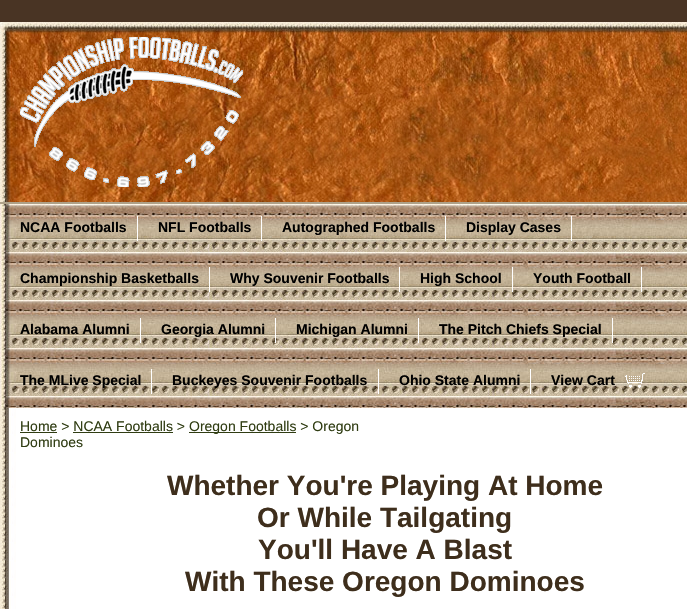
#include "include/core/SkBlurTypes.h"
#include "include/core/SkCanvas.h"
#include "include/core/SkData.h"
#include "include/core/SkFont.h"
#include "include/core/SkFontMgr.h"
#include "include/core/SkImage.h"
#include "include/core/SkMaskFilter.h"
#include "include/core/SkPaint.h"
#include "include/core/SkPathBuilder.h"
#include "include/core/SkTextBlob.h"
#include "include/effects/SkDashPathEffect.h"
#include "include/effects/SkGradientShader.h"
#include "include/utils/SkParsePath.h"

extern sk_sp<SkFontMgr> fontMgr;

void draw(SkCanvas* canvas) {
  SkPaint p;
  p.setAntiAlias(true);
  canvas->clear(SkColorSetRGB(73, 52, 36));
  canvas->drawImageRect(SkImages::DeferredFromEncodedData(SkData::MakeFromFileName("images/1.png")), SkRect::MakeLTRB(0, 408, 687, 609), SkSamplingOptions());
  p.setColor(SkColorSetRGB(174, 161, 137));
  canvas->drawRect(SkRect::MakeLTRB(0, 202, 687, 204), p);
  canvas->drawImageRect(SkImages::DeferredFromEncodedData(SkData::MakeFromFileName("images/2.png")), SkRect::MakeLTRB(0, 22, 687, 202), SkSamplingOptions());
  canvas->drawImageRect(SkImages::DeferredFromEncodedData(SkData::MakeFromFileName("images/3.png")), SkRect::MakeLTRB(20, 37, 243, 187), SkSamplingOptions());
  canvas->drawImageRect(SkImages::DeferredFromEncodedData(SkData::MakeFromFileName("images/4.png")), SkRect::MakeLTRB(0, 204, 687, 408), SkSamplingOptions());
  p.setColor(SK_ColorWHITE);
  canvas->drawRect(SkRect::MakeLTRB(137, 216, 138, 241), p);
  canvas->drawRect(SkRect::MakeLTRB(261, 216, 262, 241), p);
  canvas->drawRect(SkRect::MakeLTRB(445, 216, 446, 241), p);
  canvas->drawRect(SkRect::MakeLTRB(571, 216, 572, 241), p);
  canvas->drawRect(SkRect::MakeLTRB(209, 267, 210, 292), p);
  canvas->drawRect(SkRect::MakeLTRB(399, 267, 400, 292), p);
  canvas->drawRect(SkRect::MakeLTRB(512, 267, 513, 292), p);
  canvas->drawRect(SkRect::MakeLTRB(641, 267, 642, 292), p);
  canvas->drawRect(SkRect::MakeLTRB(140, 318, 141, 343), p);
  canvas->drawRect(SkRect::MakeLTRB(275, 318, 276, 343), p);
  canvas->drawRect(SkRect::MakeLTRB(418, 318, 419, 343), p);
  canvas->drawRect(SkRect::MakeLTRB(612, 318, 613, 343), p);
  canvas->drawRect(SkRect::MakeLTRB(151, 369, 152, 394), p);
  canvas->drawRect(SkRect::MakeLTRB(378, 369, 379, 394), p);
  canvas->drawRect(SkRect::MakeLTRB(530, 369, 531, 394), p);
  canvas->drawImageRect(SkImages::DeferredFromEncodedData(SkData::MakeFromFileName("images/5.png")), SkRect::MakeLTRB(625, 373, 645, 388), SkSamplingOptions());
  p.setColor(SkColorSetRGB(48, 61, 19));
  canvas->drawRect(SkRect::MakeLTRB(20, 432, 57, 433), p);
  canvas->drawRect(SkRect::MakeLTRB(189, 432, 296, 433), p);
  canvas->drawRect(SkRect::MakeLTRB(73, 432, 173, 433), p);
  SkFont font1(fontMgr->matchFamilyStyle("Liberation Sans", SkFontStyle::Bold()), 14);
  font1.setSubpixel(true);
  p.setColor(SK_ColorBLACK);
  canvas->drawString("NCAA Footballs", 20, 232, font1, p);
  canvas->drawString("NFL Footballs", 158, 232, font1, p);
  canvas->drawString("Autographed Footballs", 282, 232, font1, p);
  canvas->drawString("Display Cases", 466, 232, font1, p);
  canvas->drawString("Championship Basketballs", 20, 283, font1, p);
  canvas->drawString("Why Souvenir Footballs", 230, 283, font1, p);
  canvas->drawString("High School", 420, 283, font1, p);
  canvas->drawString("Youth Football", 533, 283, font1, p);
  canvas->drawString("Alabama Alumni", 20, 334, font1, p);
  canvas->drawString("Georgia Alumni", 161, 334, font1, p);
  canvas->drawString("Michigan Alumni", 296, 334, font1, p);
  canvas->drawString("The Pitch Chiefs Special", 439, 334, font1, p);
  canvas->drawString("The MLive Special", 20, 385, font1, p);
  canvas->drawString("Buckeyes Souvenir Footballs", 172, 385, font1, p);
  canvas->drawString("Ohio State Alumni", 399, 385, font1, p);
  canvas->drawString("View Cart", 551, 385, font1, p);
  SkFont font2(fontMgr->matchFamilyStyle("Liberation Sans", SkFontStyle::Normal()), 14);
  font2.setSubpixel(true);
  p.setColor(SkColorSetRGB(48, 61, 19));
  canvas->drawString("Home > NCAA Footballs >", 20, 431, font2, p);
  canvas->drawString("Oregon Footballs > Oregon", 189, 431, font2, p);
  canvas->drawString("Dominoes", 20, 447, font2, p);
  SkFont font3(fontMgr->matchFamilyStyle("Liberation Sans", SkFontStyle::Bold()), 28);
  font3.setSubpixel(true);
  p.setColor(SkColorSetRGB(62, 46, 28));
  canvas->drawString("Whether You're Playing At Home", 167, 495, font3, p);
  canvas->drawString("Or While Tailgating", 257, 527, font3, p);
  canvas->drawString("You'll Have A Blast", 258, 559, font3, p);
  canvas->drawString("With These Oregon Dominoes", 185, 591, font3, p);
}
